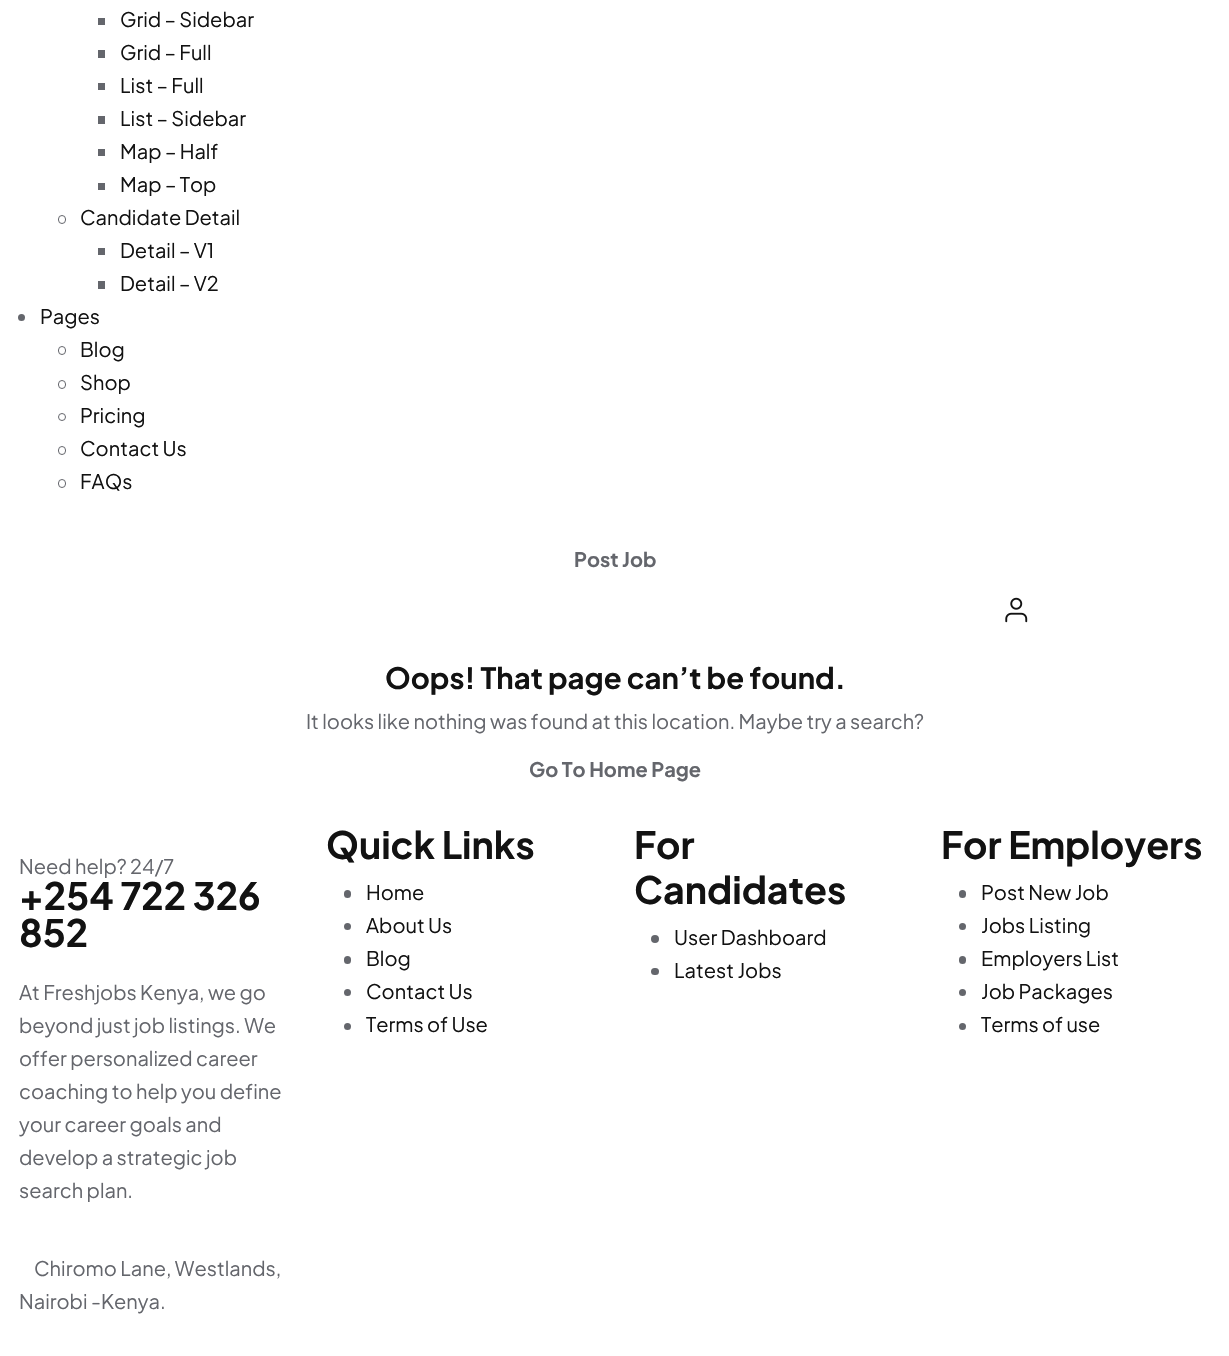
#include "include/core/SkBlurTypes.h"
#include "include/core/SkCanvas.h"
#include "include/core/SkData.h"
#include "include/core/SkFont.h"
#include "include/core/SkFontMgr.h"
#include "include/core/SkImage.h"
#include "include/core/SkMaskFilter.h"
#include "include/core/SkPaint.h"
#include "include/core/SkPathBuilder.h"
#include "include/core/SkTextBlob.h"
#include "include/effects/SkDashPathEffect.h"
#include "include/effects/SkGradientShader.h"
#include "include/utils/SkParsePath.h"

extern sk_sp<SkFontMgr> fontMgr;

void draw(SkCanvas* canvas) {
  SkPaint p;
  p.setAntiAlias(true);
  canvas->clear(SK_ColorWHITE);
  p.setColor(SkColorSetRGB(100, 102, 108));
  canvas->drawRect(SkRect::MakeLTRB(98, 18, 105, 25), p);
  canvas->drawRect(SkRect::MakeLTRB(98, 50, 105, 58), p);
  canvas->drawRect(SkRect::MakeLTRB(98, 83, 105, 90), p);
  canvas->drawRect(SkRect::MakeLTRB(98, 116, 105, 124), p);
  canvas->drawRect(SkRect::MakeLTRB(98, 149, 105, 156), p);
  canvas->drawRect(SkRect::MakeLTRB(98, 183, 105, 190), p);
  p.setStyle(SkPaint::kStroke_Style);
  p.setStrokeWidth(1);
  canvas->drawRoundRect(SkRect::MakeLTRB(58.5f, 215.5f, 65.5f, 223.5f), 3.5f, 3.5f, p);
  p.setStyle(SkPaint::kFill_Style);
  canvas->drawRect(SkRect::MakeLTRB(98, 248, 105, 255), p);
  canvas->drawRect(SkRect::MakeLTRB(98, 281, 105, 289), p);
  canvas->drawCircle(21.5f, 317.5f, 3.5f, p);
  p.setStyle(SkPaint::kStroke_Style);
  canvas->drawRoundRect(SkRect::MakeLTRB(58.5f, 346.5f, 65.5f, 354.5f), 3.5f, 3.5f, p);
  canvas->drawRoundRect(SkRect::MakeLTRB(58.5f, 380.5f, 65.5f, 388.5f), 3.5f, 3.5f, p);
  canvas->drawCircle(62, 417, 3.5f, p);
  canvas->drawRoundRect(SkRect::MakeLTRB(58.5f, 446.5f, 65.5f, 454.5f), 3.5f, 3.5f, p);
  canvas->drawRoundRect(SkRect::MakeLTRB(58.5f, 479.5f, 65.5f, 487.5f), 3.5f, 3.5f, p);
  canvas->drawImageRect(SkImages::DeferredFromEncodedData(SkData::MakeFromFileName("images/1.png")), SkRect::MakeLTRB(1005, 597, 1028, 623), SkSamplingOptions());
  p.setStyle(SkPaint::kFill_Style);
  canvas->drawRoundRect(SkRect::MakeLTRB(344, 890, 351, 898), 3.5f, 3.5f, p);
  canvas->drawCircle(347.5f, 926.5f, 3.5f, p);
  canvas->drawRoundRect(SkRect::MakeLTRB(344, 956, 351, 964), 3.5f, 3.5f, p);
  canvas->drawCircle(347.5f, 992.5f, 3.5f, p);
  canvas->drawCircle(347.5f, 1026.5f, 3.5f, p);
  canvas->drawCircle(655, 939, 4, p);
  canvas->drawRoundRect(SkRect::MakeLTRB(651, 968, 659, 975), 3.5f, 3.5f, p);
  canvas->drawRoundRect(SkRect::MakeLTRB(959, 890, 966, 898), 3.5f, 3.5f, p);
  canvas->drawCircle(962.5f, 926.5f, 3.5f, p);
  canvas->drawRoundRect(SkRect::MakeLTRB(959, 956, 966, 964), 3.5f, 3.5f, p);
  canvas->drawCircle(962.5f, 992.5f, 3.5f, p);
  canvas->drawCircle(962.5f, 1026.5f, 3.5f, p);
  SkFont font1(fontMgr->matchFamilyStyle("Plus Jakarta Sans", SkFontStyle::Normal()), 20);
  font1.setSubpixel(true);
  p.setColor(SkColorSetRGB(18, 18, 18));
  canvas->drawString("Grid – Sidebar", 120, 27, font1, p);
  canvas->drawString("Grid – Full", 120, 60, font1, p);
  canvas->drawString("List – Full", 120, 93, font1, p);
  canvas->drawString("List – Sidebar", 120, 126, font1, p);
  canvas->drawString("Map – Half", 120, 159, font1, p);
  canvas->drawString("Map – Top", 120, 192, font1, p);
  canvas->drawString("Candidate Detail", 80, 225, font1, p);
  canvas->drawString("Detail – V1", 120, 258, font1, p);
  canvas->drawString("Detail – V2", 120, 291, font1, p);
  canvas->drawString("Pages", 40, 324, font1, p);
  canvas->drawString("Blog", 80, 357, font1, p);
  canvas->drawString("Shop", 80, 390, font1, p);
  canvas->drawString("Pricing", 80, 423, font1, p);
  canvas->drawString("Contact Us", 80, 456, font1, p);
  canvas->drawString("FAQs", 80, 489, font1, p);
  SkFont font2(fontMgr->matchFamilyStyle("Plus Jakarta Sans", SkFontStyle::Bold()), 20);
  font2.setSubpixel(true);
  p.setColor(SkColorSetRGB(100, 102, 108));
  canvas->drawString("Post Job", 574, 567, font2, p);
  SkFont font3(fontMgr->matchFamilyStyle("Plus Jakarta Sans", SkFontStyle::Bold()), 29.25f);
  font3.setSubpixel(true);
  p.setColor(SkColorSetRGB(18, 18, 18));
  canvas->drawString("Oops! That page can’t be found.", 385, 689, font3, p);
  p.setColor(SkColorSetRGB(100, 102, 108));
  canvas->drawString("It looks like nothing was found at this location. Maybe try a search?", 306, 729, font1, p);
  canvas->drawString("Go To Home Page", 529, 777, font2, p);
  canvas->drawString("Need help? 24/7", 19, 874, font1, p);
  SkFont font4(fontMgr->matchFamilyStyle("Plus Jakarta Sans", SkFontStyle::Bold()), 37.5f);
  font4.setSubpixel(true);
  p.setColor(SkColorSetRGB(18, 18, 18));
  canvas->drawString("+254 722 326", 19, 910, font4, p);
  canvas->drawString("852", 19, 947, font4, p);
  p.setColor(SkColorSetRGB(100, 102, 108));
  canvas->drawString("At Freshjobs Kenya, we go", 19, 1000, font1, p);
  canvas->drawString("beyond just job listings. We", 19, 1033, font1, p);
  canvas->drawString("offer personalized career", 19, 1066, font1, p);
  canvas->drawString("coaching to help you define", 19, 1099, font1, p);
  canvas->drawString("your career goals and", 19, 1132, font1, p);
  canvas->drawString("develop a strategic job", 19, 1165, font1, p);
  canvas->drawString("search plan.", 19, 1198, font1, p);
  canvas->drawString("Chiromo Lane, Westlands,", 34, 1276, font1, p);
  canvas->drawString("Nairobi -Kenya.", 19, 1309, font1, p);
  p.setColor(SkColorSetRGB(18, 18, 18));
  canvas->drawString("Quick Links", 326, 859, font4, p);
  canvas->drawString("Home", 366, 900, font1, p);
  canvas->drawString("About Us", 366, 933, font1, p);
  canvas->drawString("Blog", 366, 966, font1, p);
  canvas->drawString("Contact Us", 366, 999, font1, p);
  canvas->drawString("Terms of Use", 366, 1032, font1, p);
  canvas->drawString("For", 634, 859, font4, p);
  canvas->drawString("Candidates", 634, 904, font4, p);
  canvas->drawString("User Dashboard", 674, 945, font1, p);
  canvas->drawString("Latest Jobs", 674, 978, font1, p);
  canvas->drawString("For Employers", 941, 859, font4, p);
  canvas->drawString("Post New Job", 981, 900, font1, p);
  canvas->drawString("Jobs Listing", 981, 933, font1, p);
  canvas->drawString("Employers List", 981, 966, font1, p);
  canvas->drawString("Job Packages", 981, 999, font1, p);
  canvas->drawString("Terms of use", 981, 1032, font1, p);
}
